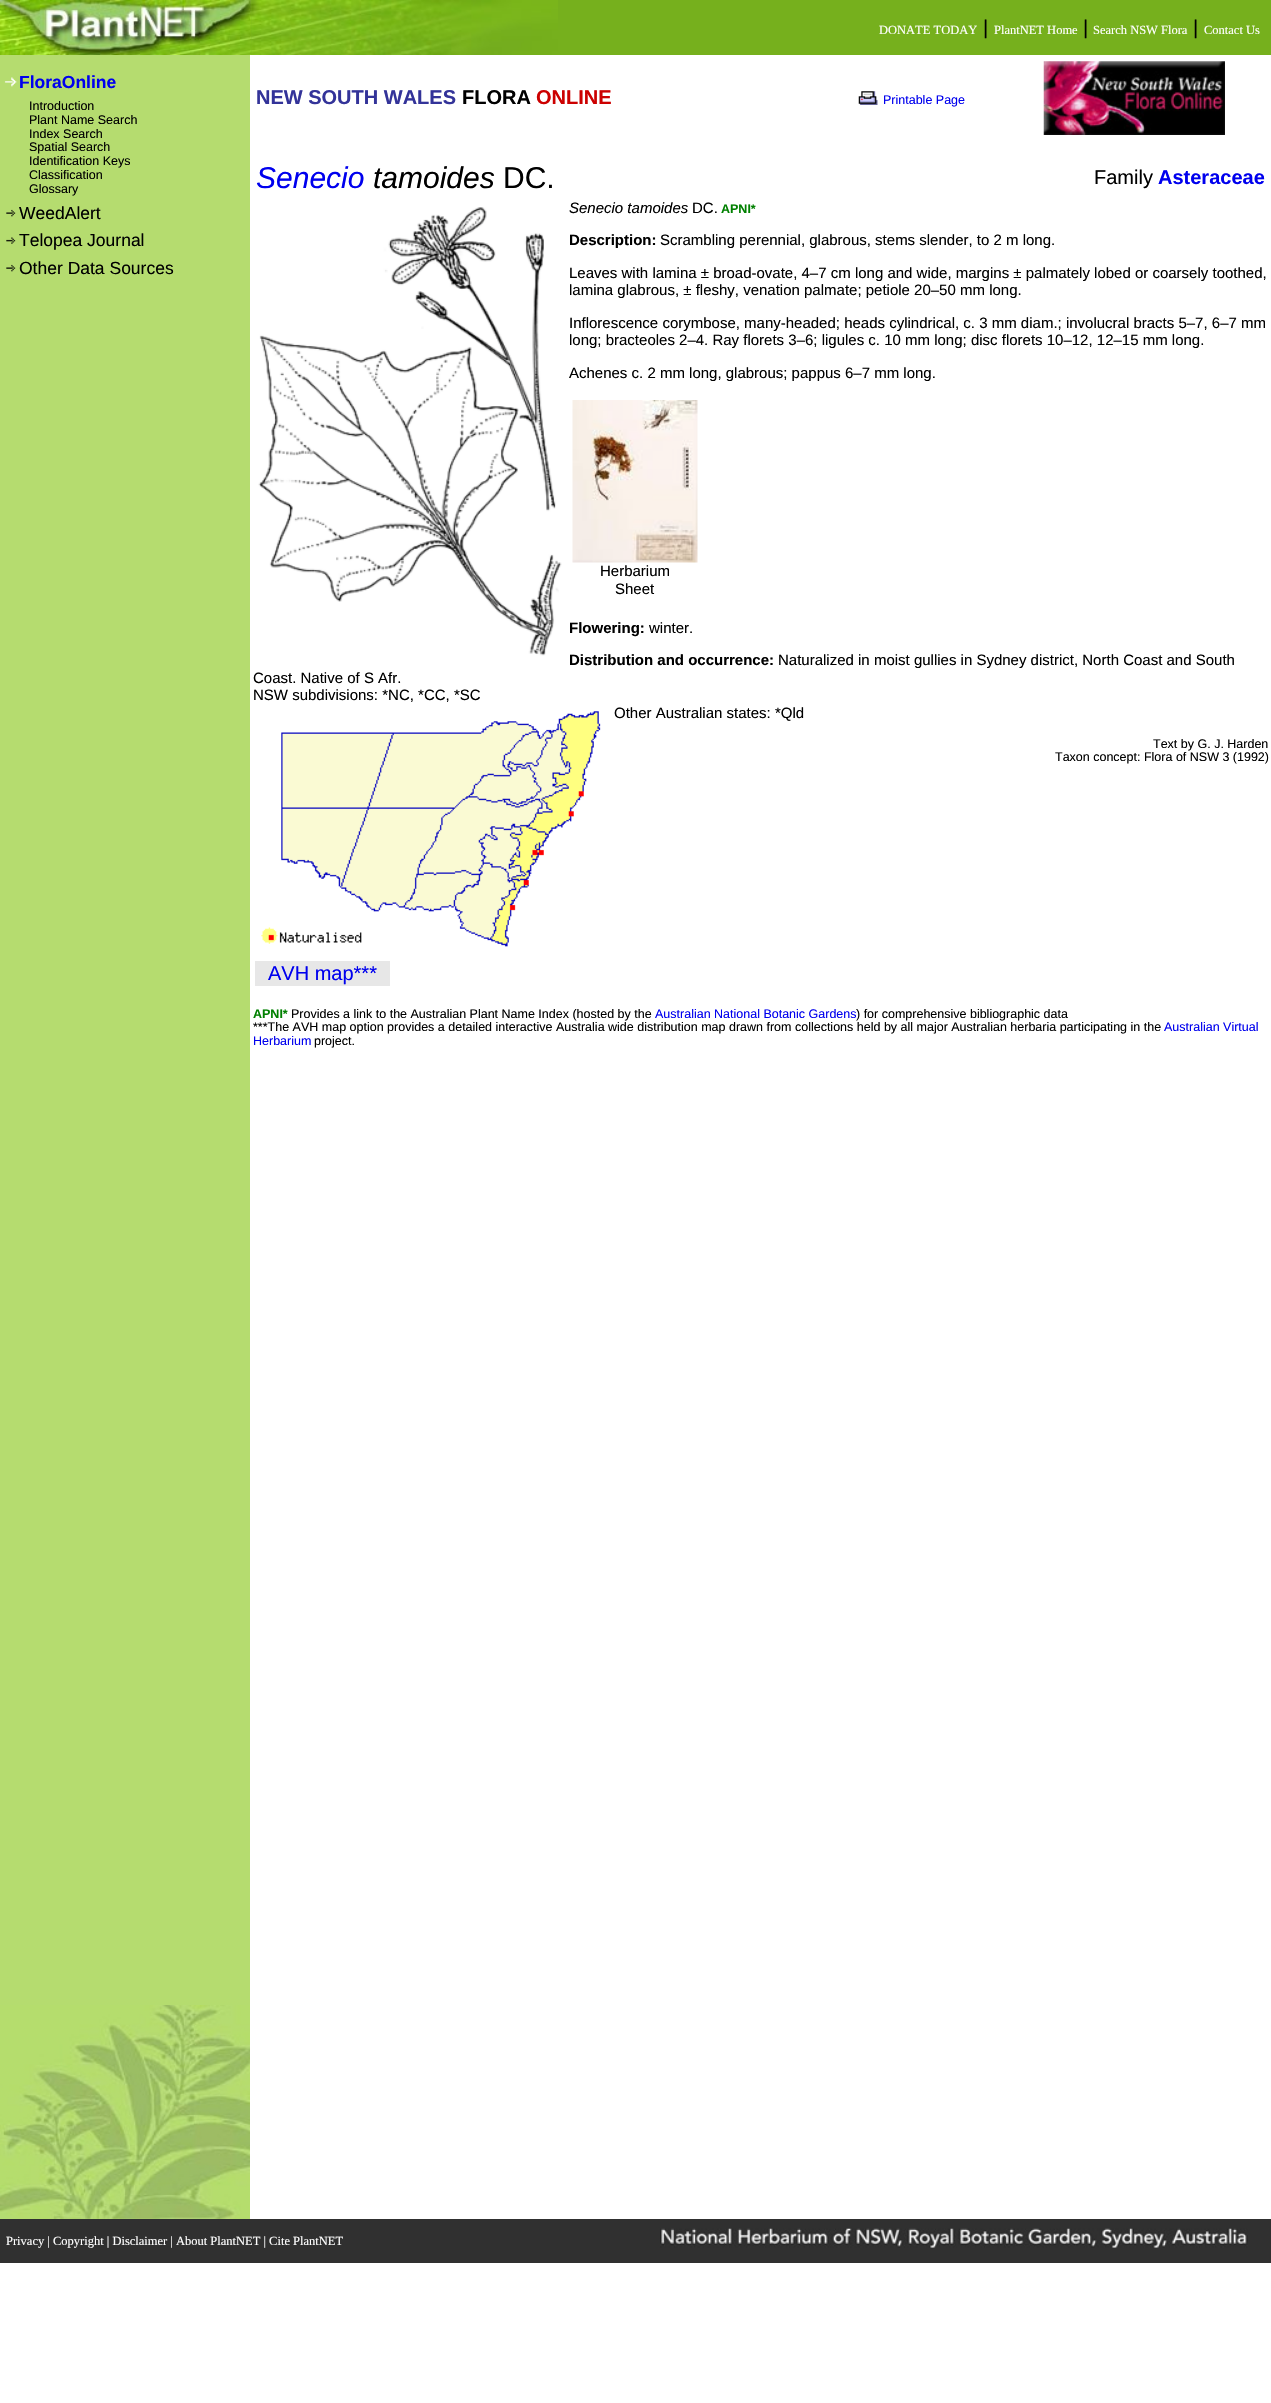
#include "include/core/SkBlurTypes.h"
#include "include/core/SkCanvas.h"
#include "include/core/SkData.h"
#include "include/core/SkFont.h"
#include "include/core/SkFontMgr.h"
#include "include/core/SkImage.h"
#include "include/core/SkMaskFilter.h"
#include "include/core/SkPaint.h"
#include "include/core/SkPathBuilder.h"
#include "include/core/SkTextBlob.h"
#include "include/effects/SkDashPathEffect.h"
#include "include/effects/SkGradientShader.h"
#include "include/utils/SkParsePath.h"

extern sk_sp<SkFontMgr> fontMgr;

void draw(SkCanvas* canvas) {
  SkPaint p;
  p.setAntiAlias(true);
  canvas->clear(SK_ColorWHITE);
  p.setColor(SkColorSetRGB(118, 176, 29));
  canvas->drawRect(SkRect::MakeLTRB(251, 0, 1271, 55), p);
  canvas->drawImageRect(SkImages::DeferredFromEncodedData(SkData::MakeFromFileName("images/2.png")), SkRect::MakeLTRB(251, 0, 558, 55), SkSamplingOptions());
  canvas->drawImageRect(SkImages::DeferredFromEncodedData(SkData::MakeFromFileName("images/1.png")), SkRect::MakeLTRB(0, 0, 252, 55), SkSamplingOptions());
  p.setColor(SkColorSetRGB(181, 220, 111));
  canvas->drawRect(SkRect::MakeLTRB(0, 55, 250, 2219), p);
  canvas->drawImageRect(SkImages::DeferredFromEncodedData(SkData::MakeFromFileName("images/3.png")), SkRect::MakeLTRB(0, 2005, 250, 2219), SkSamplingOptions());
  canvas->drawImageRect(SkImages::DeferredFromEncodedData(SkData::MakeFromFileName("images/4.png")), SkRect::MakeLTRB(4, 77, 17, 87), SkSamplingOptions());
  canvas->drawImageRect(SkImages::DeferredFromEncodedData(SkData::MakeFromFileName("images/5.png")), SkRect::MakeLTRB(6, 209, 16, 217), SkSamplingOptions());
  canvas->drawImageRect(SkImages::DeferredFromEncodedData(SkData::MakeFromFileName("images/6.png")), SkRect::MakeLTRB(6, 237, 16, 244), SkSamplingOptions());
  canvas->drawImageRect(SkImages::DeferredFromEncodedData(SkData::MakeFromFileName("images/5.png")), SkRect::MakeLTRB(6, 264, 16, 272), SkSamplingOptions());
  canvas->drawImageRect(SkImages::DeferredFromEncodedData(SkData::MakeFromFileName("images/7.png")), SkRect::MakeLTRB(858, 91, 878, 105), SkSamplingOptions());
  canvas->drawImageRect(SkImages::DeferredFromEncodedData(SkData::MakeFromFileName("images/8.png")), SkRect::MakeLTRB(1043, 61, 1225, 135), SkSamplingOptions());
  canvas->drawImageRect(SkImages::DeferredFromEncodedData(SkData::MakeFromFileName("images/9.png")), SkRect::MakeLTRB(258, 207, 562, 656), SkSamplingOptions());
  canvas->drawImageRect(SkImages::DeferredFromEncodedData(SkData::MakeFromFileName("images/10.png")), SkRect::MakeLTRB(572, 400, 698, 563), SkSamplingOptions());
  canvas->drawImageRect(SkImages::DeferredFromEncodedData(SkData::MakeFromFileName("images/11.png")), SkRect::MakeLTRB(261, 711, 601, 947), SkSamplingOptions());
  p.setColor(SkColorSetRGB(231, 231, 231));
  canvas->drawRect(SkRect::MakeLTRB(255, 961, 390, 986), p);
  p.setColor(SkColorSetRGB(48, 48, 48));
  canvas->drawRect(SkRect::MakeLTRB(0, 2219, 1271, 2263), p);
  canvas->drawImageRect(SkImages::DeferredFromEncodedData(SkData::MakeFromFileName("images/12.png")), SkRect::MakeLTRB(660, 2228, 1248, 2248), SkSamplingOptions());
  SkFont font1(fontMgr->matchFamilyStyle("Liberation Serif", SkFontStyle::Normal()), 12.5f);
  font1.setSubpixel(true);
  p.setColor(SK_ColorWHITE);
  canvas->drawString("DONATE TODAY", 879, 34, font1, p);
  SkFont font2(fontMgr->matchFamilyStyle("Liberation Sans", SkFontStyle::Normal()), 20);
  font2.setSubpixel(true);
  p.setColor(SK_ColorBLACK);
  canvas->drawString("|", 983, 34, font2, p);
  p.setColor(SK_ColorWHITE);
  canvas->drawString("PlantNET Home", 994, 34, font1, p);
  p.setColor(SK_ColorBLACK);
  canvas->drawString("|", 1083, 34, font2, p);
  p.setColor(SK_ColorWHITE);
  canvas->drawString("Search NSW Flora", 1093, 34, font1, p);
  p.setColor(SK_ColorBLACK);
  canvas->drawString("|", 1193, 34, font2, p);
  p.setColor(SK_ColorWHITE);
  canvas->drawString("Contact Us", 1204, 34, font1, p);
  SkFont font3(fontMgr->matchFamilyStyle("Liberation Sans", SkFontStyle::Bold()), 17.5f);
  font3.setSubpixel(true);
  p.setColor(SkColorSetRGB(0, 0, 238));
  canvas->drawString("FloraOnline", 19, 88, font3, p);
  SkFont font4(fontMgr->matchFamilyStyle("Liberation Sans", SkFontStyle::Normal()), 12.5f);
  font4.setSubpixel(true);
  p.setColor(SK_ColorBLACK);
  canvas->drawString("Introduction", 29, 110, font4, p);
  canvas->drawString("Plant Name Search", 29, 124, font4, p);
  canvas->drawString("Index Search", 29, 138, font4, p);
  canvas->drawString("Spatial Search", 29, 151, font4, p);
  canvas->drawString("Identification Keys", 29, 165, font4, p);
  canvas->drawString("Classification", 29, 179, font4, p);
  canvas->drawString("Glossary", 29, 193, font4, p);
  SkFont font5(fontMgr->matchFamilyStyle("Liberation Sans", SkFontStyle::Normal()), 17.5f);
  font5.setSubpixel(true);
  canvas->drawString("WeedAlert", 19, 219, font5, p);
  canvas->drawString("Telopea Journal", 19, 246, font5, p);
  canvas->drawString("Other Data Sources", 19, 274, font5, p);
  SkFont font6(fontMgr->matchFamilyStyle("Liberation Sans", SkFontStyle::Bold()), 20);
  font6.setSubpixel(true);
  p.setColor(SkColorSetRGB(51, 51, 153));
  canvas->drawString("NEW SOUTH WALES", 256, 104, font6, p);
  p.setColor(SK_ColorBLACK);
  canvas->drawString("FLORA", 462, 104, font6, p);
  p.setColor(SkColorSetRGB(204, 0, 0));
  canvas->drawString("ONLINE", 536, 104, font6, p);
  p.setColor(SkColorSetRGB(0, 0, 238));
  canvas->drawString("Printable Page", 883, 104, font4, p);
  SkFont font7(fontMgr->matchFamilyStyle("Liberation Sans", SkFontStyle::Italic()), 30);
  font7.setSubpixel(true);
  canvas->drawString("Senecio", 256, 188, font7, p);
  p.setColor(SK_ColorBLACK);
  canvas->drawString("tamoides", 373, 188, font7, p);
  SkFont font8(fontMgr->matchFamilyStyle("Liberation Sans", SkFontStyle::Normal()), 30);
  font8.setSubpixel(true);
  canvas->drawString("DC.", 503, 188, font8, p);
  canvas->drawString("Family", 1094, 184, font2, p);
  p.setColor(SkColorSetRGB(0, 0, 238));
  canvas->drawString("Asteraceae", 1158, 184, font6, p);
  SkFont font9(fontMgr->matchFamilyStyle("Liberation Sans", SkFontStyle::Italic()), 15);
  font9.setSubpixel(true);
  p.setColor(SK_ColorBLACK);
  canvas->drawString("Senecio tamoides", 569, 213, font9, p);
  SkFont font10(fontMgr->matchFamilyStyle("Liberation Sans", SkFontStyle::Normal()), 15);
  font10.setSubpixel(true);
  canvas->drawString("DC.", 692, 213, font10, p);
  SkFont font11(fontMgr->matchFamilyStyle("Liberation Sans", SkFontStyle::Bold()), 12.5f);
  font11.setSubpixel(true);
  p.setColor(SkColorSetRGB(0, 128, 0));
  canvas->drawString("APNI*", 721, 213, font11, p);
  SkFont font12(fontMgr->matchFamilyStyle("Liberation Sans", SkFontStyle::Bold()), 15);
  font12.setSubpixel(true);
  p.setColor(SK_ColorBLACK);
  canvas->drawString("Description:", 569, 245, font12, p);
  canvas->drawString("Scrambling perennial, glabrous, stems slender, to 2 m long.", 660, 245, font10, p);
  canvas->drawString("Leaves with lamina ± broad-ovate, 4–7 cm long and wide, margins ± palmately lobed or coarsely toothed,", 569, 278, font10, p);
  canvas->drawString("lamina glabrous, ± fleshy, venation palmate; petiole 20–50 mm long.", 569, 295, font10, p);
  canvas->drawString("Inflorescence corymbose, many-headed; heads cylindrical, c. 3 mm diam.; involucral bracts 5–7, 6–7 mm", 569, 328, font10, p);
  canvas->drawString("long; bracteoles 2–4. Ray florets 3–6; ligules c. 10 mm long; disc florets 10–12, 12–15 mm long.", 569, 345, font10, p);
  canvas->drawString("Achenes c. 2 mm long, glabrous; pappus 6–7 mm long.", 569, 378, font10, p);
  canvas->drawString("Herbarium", 600, 576, font10, p);
  canvas->drawString("Sheet", 615, 594, font10, p);
  canvas->drawString("Flowering:", 569, 633, font12, p);
  canvas->drawString("winter.", 649, 633, font10, p);
  canvas->drawString("Distribution and occurrence:", 569, 665, font12, p);
  canvas->drawString("Naturalized in moist gullies in Sydney district, North Coast and South", 778, 665, font10, p);
  canvas->drawString("Coast. Native of S Afr.", 253, 683, font10, p);
  canvas->drawString("NSW subdivisions: *NC, *CC, *SC", 253, 700, font10, p);
  canvas->drawString("Other Australian states: *Qld", 614, 718, font10, p);
  p.setColor(SkColorSetRGB(0, 0, 238));
  canvas->drawString("AVH map***", 268, 980, font2, p);
  p.setColor(SK_ColorBLACK);
  canvas->drawString("Text by G. J. Harden", 1153, 748, font4, p);
  canvas->drawString("Taxon concept: Flora of NSW 3 (1992)", 1055, 761, font4, p);
  p.setColor(SkColorSetRGB(0, 128, 0));
  canvas->drawString("APNI*", 253, 1018, font11, p);
  p.setColor(SK_ColorBLACK);
  canvas->drawString("Provides a link to the Australian Plant Name Index (hosted by the", 291, 1018, font4, p);
  p.setColor(SkColorSetRGB(0, 0, 238));
  canvas->drawString("Australian National Botanic Gardens", 655, 1018, font4, p);
  p.setColor(SK_ColorBLACK);
  canvas->drawString(") for comprehensive bibliographic data", 856, 1018, font4, p);
  canvas->drawString("***The AVH map option provides a detailed interactive Australia wide distribution map drawn from collections held by all major Australian herbaria participating in the", 253, 1031, font4, p);
  p.setColor(SkColorSetRGB(0, 0, 238));
  canvas->drawString("Australian Virtual", 1164, 1031, font4, p);
  canvas->drawString("Herbarium", 253, 1045, font4, p);
  p.setColor(SK_ColorBLACK);
  canvas->drawString("project.", 314, 1045, font4, p);
  p.setColor(SK_ColorWHITE);
  canvas->drawString("Privacy | Copyright | Disclaimer | About PlantNET | Cite PlantNET", 6, 2245, font1, p);
}
